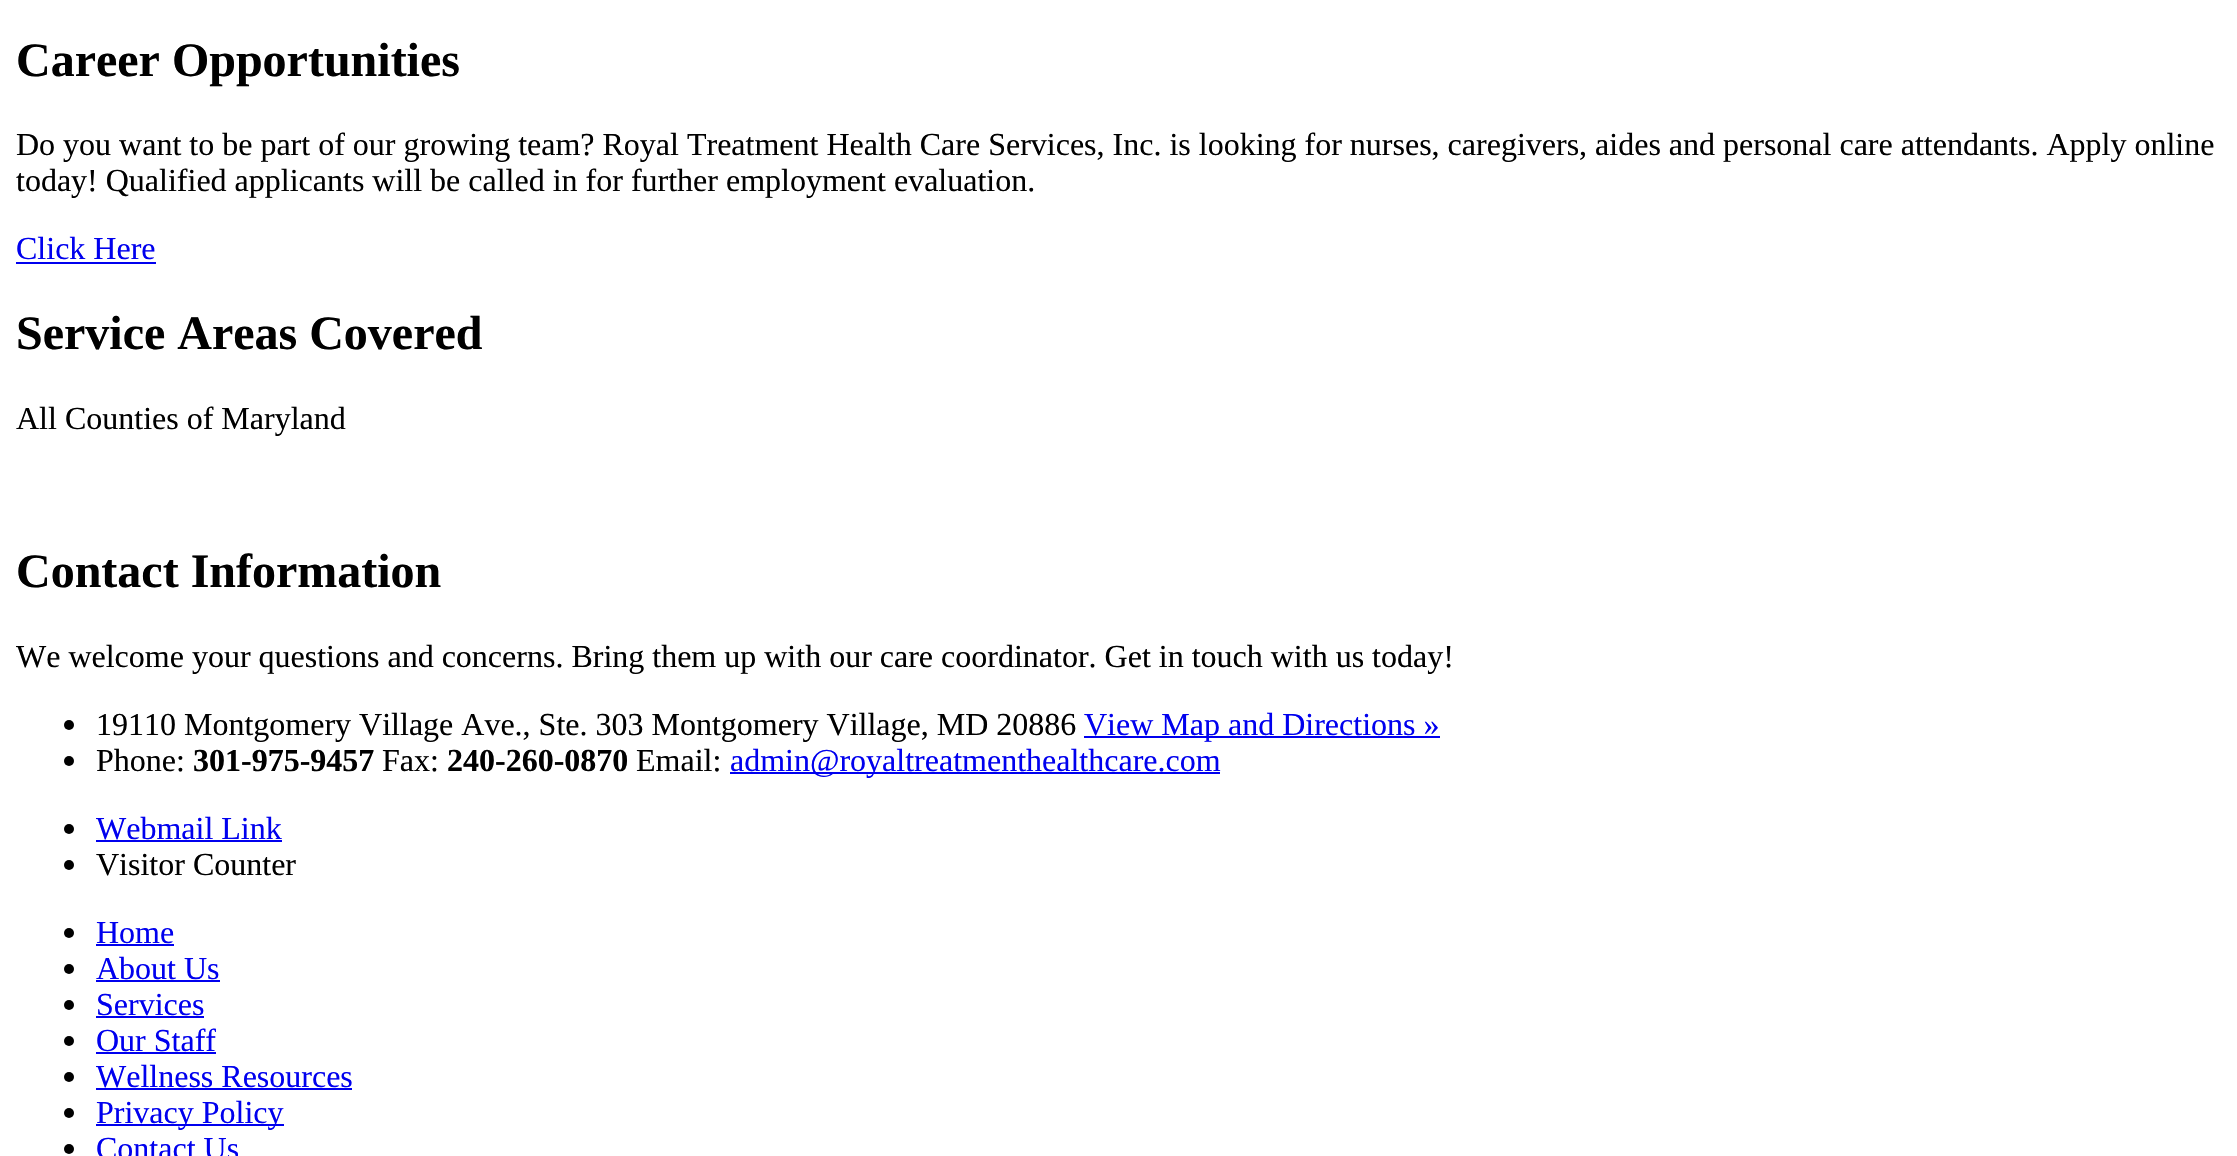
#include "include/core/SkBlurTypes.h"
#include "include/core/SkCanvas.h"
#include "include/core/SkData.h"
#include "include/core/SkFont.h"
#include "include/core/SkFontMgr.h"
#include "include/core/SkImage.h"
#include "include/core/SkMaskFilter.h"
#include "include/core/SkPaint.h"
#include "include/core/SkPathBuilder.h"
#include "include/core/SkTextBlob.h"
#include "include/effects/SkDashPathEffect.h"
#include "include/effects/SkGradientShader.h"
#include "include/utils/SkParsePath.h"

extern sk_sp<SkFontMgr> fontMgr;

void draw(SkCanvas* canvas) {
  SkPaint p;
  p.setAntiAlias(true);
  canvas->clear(SK_ColorWHITE);
  p.setColor(SkColorSetRGB(0, 0, 238));
  canvas->drawRect(SkRect::MakeLTRB(16, 262, 156, 264), p);
  p.setColor(SK_ColorBLACK);
  canvas->drawCircle(69, 725, 5, p);
  p.setColor(SkColorSetRGB(0, 0, 238));
  canvas->drawRect(SkRect::MakeLTRB(1084, 736, 1440, 738), p);
  p.setColor(SK_ColorBLACK);
  canvas->drawCircle(69, 761, 5, p);
  p.setColor(SkColorSetRGB(0, 0, 238));
  canvas->drawRect(SkRect::MakeLTRB(730, 772, 1220, 774), p);
  p.setColor(SK_ColorBLACK);
  canvas->drawCircle(69, 829, 5, p);
  p.setColor(SkColorSetRGB(0, 0, 238));
  canvas->drawRect(SkRect::MakeLTRB(96, 840, 282, 842), p);
  p.setColor(SK_ColorBLACK);
  canvas->drawCircle(69, 865, 5, p);
  canvas->drawCircle(69, 933, 5, p);
  p.setColor(SkColorSetRGB(0, 0, 238));
  canvas->drawRect(SkRect::MakeLTRB(96, 944, 174, 946), p);
  p.setColor(SK_ColorBLACK);
  canvas->drawCircle(69, 969, 5, p);
  p.setColor(SkColorSetRGB(0, 0, 238));
  canvas->drawRect(SkRect::MakeLTRB(96, 980, 220, 982), p);
  p.setColor(SK_ColorBLACK);
  canvas->drawCircle(69, 1005, 5, p);
  p.setColor(SkColorSetRGB(0, 0, 238));
  canvas->drawRect(SkRect::MakeLTRB(96, 1016, 204, 1018), p);
  p.setColor(SK_ColorBLACK);
  canvas->drawCircle(69, 1041, 5, p);
  p.setColor(SkColorSetRGB(0, 0, 238));
  canvas->drawRect(SkRect::MakeLTRB(96, 1052, 216, 1054), p);
  p.setColor(SK_ColorBLACK);
  canvas->drawCircle(69, 1077, 5, p);
  p.setColor(SkColorSetRGB(0, 0, 238));
  canvas->drawRect(SkRect::MakeLTRB(96, 1088, 352, 1090), p);
  p.setColor(SK_ColorBLACK);
  canvas->drawCircle(69, 1113, 5, p);
  p.setColor(SkColorSetRGB(0, 0, 238));
  canvas->drawRect(SkRect::MakeLTRB(96, 1124, 284, 1126), p);
  p.setColor(SK_ColorBLACK);
  canvas->drawCircle(69, 1149, 5, p);
  SkFont font1(fontMgr->matchFamilyStyle("Liberation Serif", SkFontStyle::Bold()), 48);
  font1.setSubpixel(true);
  canvas->drawString("Career Opportunities", 16, 76, font1, p);
  SkFont font2(fontMgr->matchFamilyStyle("Liberation Serif", SkFontStyle::Normal()), 32);
  font2.setSubpixel(true);
  canvas->drawString("Do you want to be part of our growing team? Royal Treatment Health Care Services, Inc. is looking for nurses, caregivers, aides and personal care attendants. Apply online", 16, 155, font2, p);
  canvas->drawString("today! Qualified applicants will be called in for further employment evaluation.", 16, 191, font2, p);
  p.setColor(SkColorSetRGB(0, 0, 238));
  canvas->drawString("Click Here", 16, 259, font2, p);
  p.setColor(SK_ColorBLACK);
  canvas->drawString("Service Areas Covered", 16, 349, font1, p);
  canvas->drawString("All Counties of Maryland", 16, 429, font2, p);
  canvas->drawString("Contact Information", 16, 587, font1, p);
  canvas->drawString("We welcome your questions and concerns. Bring them up with our care coordinator. Get in touch with us today!", 16, 667, font2, p);
  canvas->drawString("19110 Montgomery Village Ave., Ste. 303 Montgomery Village, MD 20886", 96, 735, font2, p);
  p.setColor(SkColorSetRGB(0, 0, 238));
  canvas->drawString("View Map and Directions »", 1084, 735, font2, p);
  p.setColor(SK_ColorBLACK);
  canvas->drawString("Phone:", 96, 771, font2, p);
  SkFont font3(fontMgr->matchFamilyStyle("Liberation Serif", SkFontStyle::Bold()), 32);
  font3.setSubpixel(true);
  canvas->drawString("301-975-9457", 193, 771, font3, p);
  canvas->drawString("Fax:", 382, 771, font2, p);
  canvas->drawString("240-260-0870", 447, 771, font3, p);
  canvas->drawString("Email:", 636, 771, font2, p);
  p.setColor(SkColorSetRGB(0, 0, 238));
  canvas->drawString("admin@royaltreatmenthealthcare.com", 730, 771, font2, p);
  canvas->drawString("Webmail Link", 96, 839, font2, p);
  p.setColor(SK_ColorBLACK);
  canvas->drawString("Visitor Counter", 96, 875, font2, p);
  p.setColor(SkColorSetRGB(0, 0, 238));
  canvas->drawString("Home", 96, 943, font2, p);
  canvas->drawString("About Us", 96, 979, font2, p);
  canvas->drawString("Services", 96, 1015, font2, p);
  canvas->drawString("Our Staff", 96, 1051, font2, p);
  canvas->drawString("Wellness Resources", 96, 1087, font2, p);
  canvas->drawString("Privacy Policy", 96, 1123, font2, p);
  canvas->drawString("Contact Us", 96, 1159, font2, p);
}
